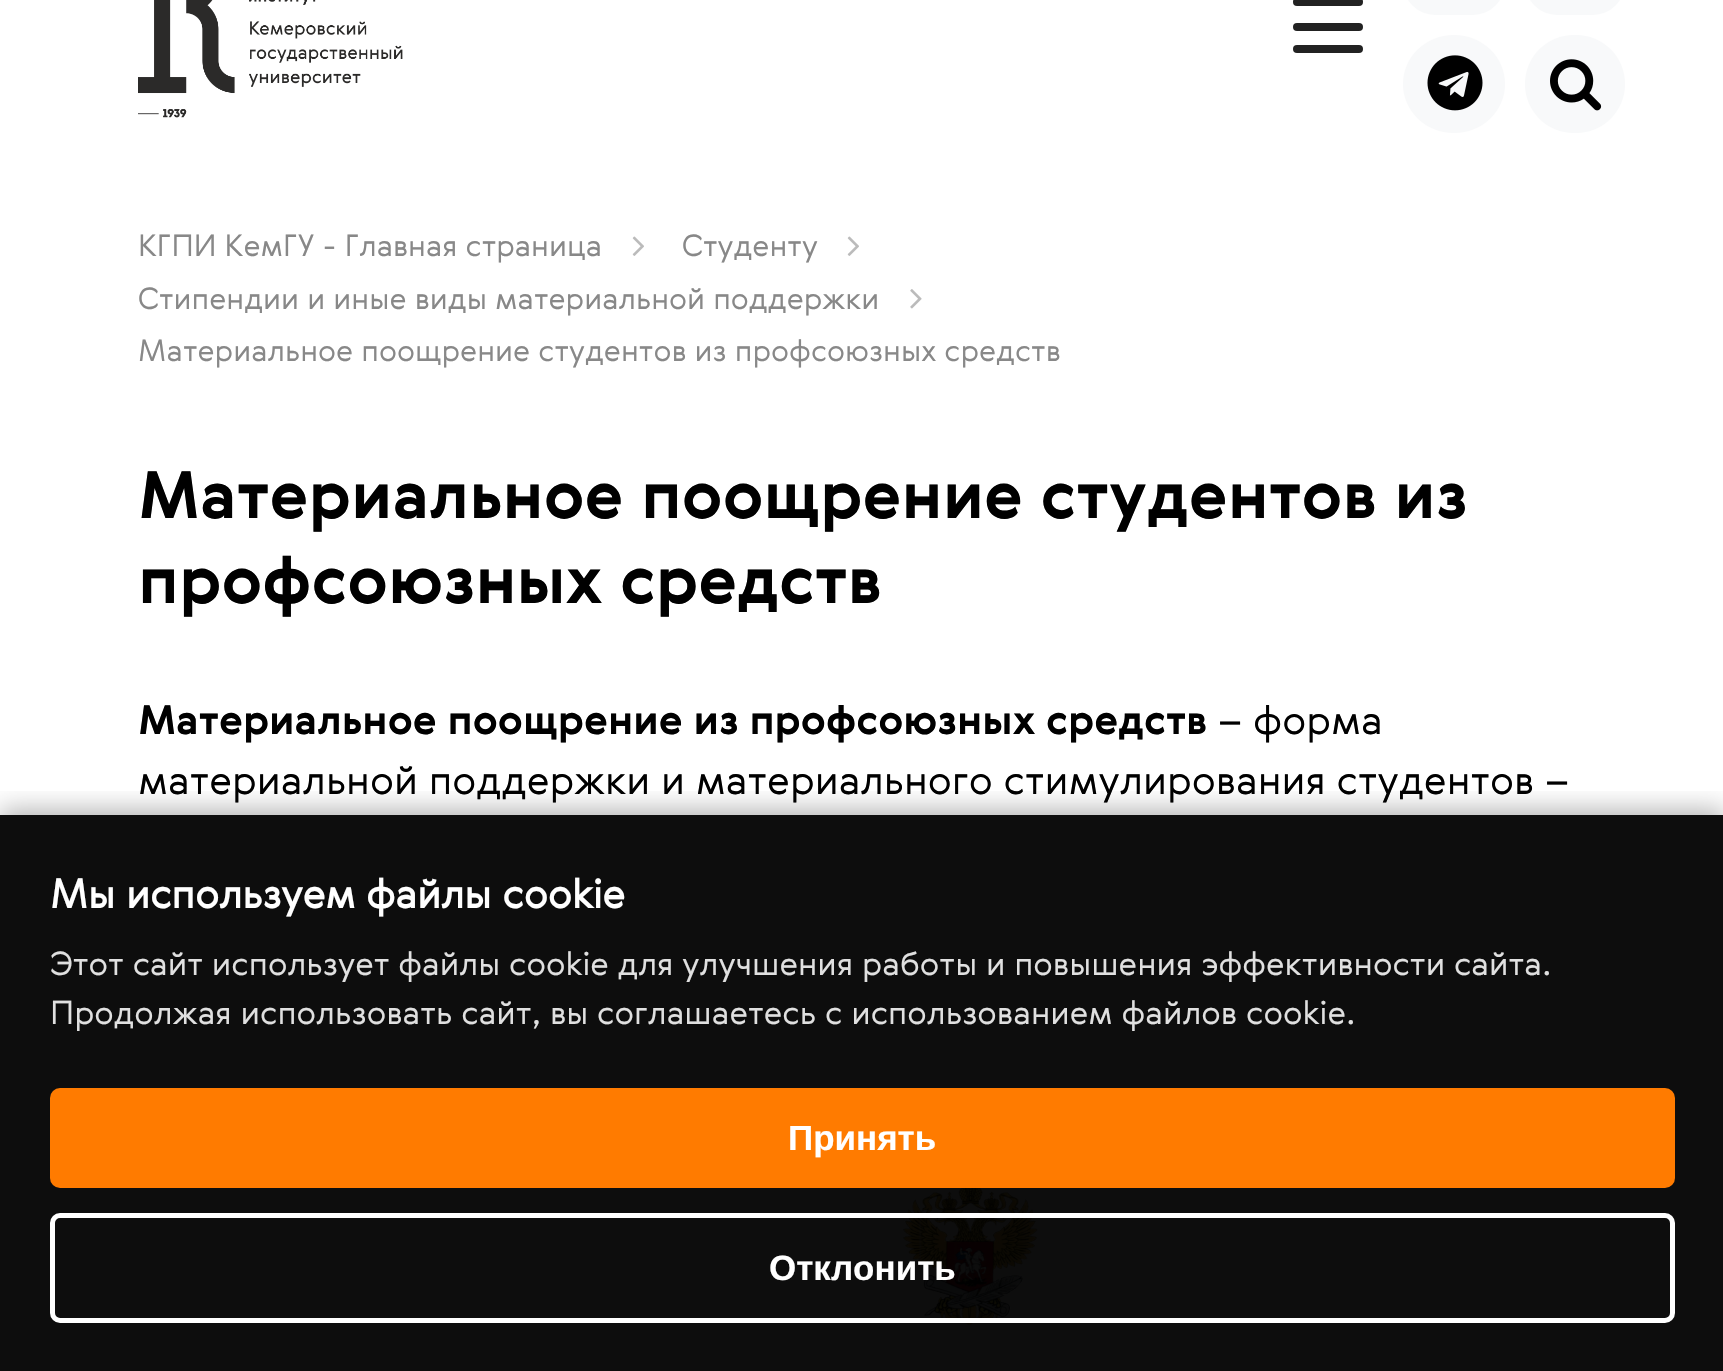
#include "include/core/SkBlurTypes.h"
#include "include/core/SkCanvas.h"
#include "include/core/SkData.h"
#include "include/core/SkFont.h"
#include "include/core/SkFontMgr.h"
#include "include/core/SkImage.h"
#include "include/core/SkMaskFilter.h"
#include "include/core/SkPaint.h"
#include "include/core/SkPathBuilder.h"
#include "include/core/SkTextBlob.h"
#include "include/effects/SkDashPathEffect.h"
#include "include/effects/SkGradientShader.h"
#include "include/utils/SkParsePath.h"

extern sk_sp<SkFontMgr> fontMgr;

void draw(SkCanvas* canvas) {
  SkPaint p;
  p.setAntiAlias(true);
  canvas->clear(SK_ColorWHITE);
  p.setColor(SkColorSetRGB(13, 13, 13));
  canvas->drawRect(SkRect::MakeLTRB(0, 815, 1723, 1371), p);
  canvas->drawImageRect(SkImages::DeferredFromEncodedData(SkData::MakeFromFileName("images/1.png")), SkRect::MakeLTRB(138, 0, 403, 118), SkSamplingOptions());
  p.setColor(SkColorSetRGB(34, 34, 34));
  canvas->drawRoundRect(SkRect::MakeLTRB(1293, -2, 1363, 6), 4, 4, p);
  canvas->drawRoundRect(SkRect::MakeLTRB(1293, 23, 1363, 31), 4, 4, p);
  canvas->drawRoundRect(SkRect::MakeLTRB(1293, 45, 1363, 53), 4, 4, p);
  p.setColor(SkColorSetRGB(248, 249, 250));
  canvas->drawRoundRect(SkRect::MakeLTRB(1403, -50, 1505, 15), 50, 50, p);
  canvas->drawOval(SkRect::MakeLTRB(1403, 35, 1505, 133), p);
  canvas->drawImageRect(SkImages::DeferredFromEncodedData(SkData::MakeFromFileName("images/2.png")), SkRect::MakeLTRB(1427, 55, 1483, 111), SkSamplingOptions());
  canvas->drawRoundRect(SkRect::MakeLTRB(1525, -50, 1625, 15), 50, 50, p);
  canvas->drawRoundRect(SkRect::MakeLTRB(1525, 35, 1625, 133), 49, 49, p);
  canvas->drawImageRect(SkImages::DeferredFromEncodedData(SkData::MakeFromFileName("images/3.png")), SkRect::MakeLTRB(1550, 59, 1602, 111), SkSamplingOptions());
  canvas->drawImageRect(SkImages::DeferredFromEncodedData(SkData::MakeFromFileName("images/4.png")), SkRect::MakeLTRB(632, 236, 644, 256), SkSamplingOptions());
  canvas->drawImageRect(SkImages::DeferredFromEncodedData(SkData::MakeFromFileName("images/4.png")), SkRect::MakeLTRB(847, 236, 859, 256), SkSamplingOptions());
  canvas->drawImageRect(SkImages::DeferredFromEncodedData(SkData::MakeFromFileName("images/5.png")), SkRect::MakeLTRB(910, 289, 922, 309), SkSamplingOptions());
  canvas->drawImageRect(SkImages::DeferredFromEncodedData(SkData::MakeFromFileName("images/6.png")), SkRect::MakeLTRB(902, 1188, 1038, 1326), SkSamplingOptions());
  canvas->save();
  canvas->clipRect(SkRect::MakeLTRB(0, 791, 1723, 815));
  p.setColor(SkColorSetARGB(77, 0, 0, 0));
  p.setMaskFilter(SkMaskFilter::MakeBlur(kNormal_SkBlurStyle, 12.5f));
  canvas->drawRect(SkRect::MakeLTRB(0, 810, 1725, 1368), p);
  p.setMaskFilter(nullptr);
  canvas->restore();
  p.setColor(SkColorSetRGB(255, 123, 0));
  canvas->drawRoundRect(SkRect::MakeLTRB(50, 1088, 1675, 1188), 10, 10, p);
  p.setStyle(SkPaint::kStroke_Style);
  p.setStrokeWidth(5);
  p.setColor(SK_ColorWHITE);
  canvas->drawRoundRect(SkRect::MakeLTRB(52.5f, 1215.5f, 1672.5f, 1320.5f), 7.5f, 7.5f, p);
  SkFont font1(fontMgr->matchFamilyStyle("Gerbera", SkFontStyle(300, SkFontStyle::kNormal_Width, SkFontStyle::kUpright_Slant)), 30);
  font1.setSubpixel(true);
  p.setStyle(SkPaint::kFill_Style);
  p.setColor(SkColorSetRGB(136, 136, 136));
  canvas->drawString("КГПИ КемГУ - Главная страница", 138, 256, font1, p);
  canvas->drawString("Студенту", 682, 256, font1, p);
  canvas->drawString("Стипендии и иные виды материальной поддержки", 138, 309, font1, p);
  canvas->drawString("Материальное поощрение студентов из профсоюзных средств", 138, 361, font1, p);
  SkFont font2(fontMgr->matchFamilyStyle("Gerbera", SkFontStyle::Bold()), 65);
  font2.setSubpixel(true);
  p.setColor(SK_ColorBLACK);
  canvas->drawString("Материальное поощрение студентов из", 138, 518, font2, p);
  canvas->drawString("профсоюзных средств", 138, 603, font2, p);
  SkFont font3(fontMgr->matchFamilyStyle("Gerbera", SkFontStyle::Bold()), 40);
  font3.setSubpixel(true);
  canvas->drawString("Материальное поощрение из профсоюзных средств", 138, 734, font3, p);
  SkFont font4(fontMgr->matchFamilyStyle("Gerbera", SkFontStyle(300, SkFontStyle::kNormal_Width, SkFontStyle::kUpright_Slant)), 40);
  font4.setSubpixel(true);
  canvas->drawString("– форма", 1218, 734, font4, p);
  canvas->drawString("материальной поддержки и материального стимулирования студентов –", 138, 794, font4, p);
  SkFont font5(fontMgr->matchFamilyStyle("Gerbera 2", SkFontStyle::Bold()), 40);
  font5.setSubpixel(true);
  p.setColor(SK_ColorWHITE);
  canvas->drawString("Мы используем файлы cookie", 50, 908, font5, p);
  SkFont font6(fontMgr->matchFamilyStyle("Gerbera", SkFontStyle(300, SkFontStyle::kNormal_Width, SkFontStyle::kUpright_Slant)), 32.5f);
  font6.setSubpixel(true);
  p.setColor(SkColorSetRGB(224, 224, 224));
  canvas->drawString("Этот сайт использует файлы cookie для улучшения работы и повышения эффективности сайта.", 50, 975, font6, p);
  canvas->drawString("Продолжая использовать сайт, вы соглашаетесь с использованием файлов cookie.", 50, 1024, font6, p);
  SkFont font7(fontMgr->matchFamilyStyle("Liberation Sans", SkFontStyle::Bold()), 35);
  font7.setSubpixel(true);
  p.setColor(SK_ColorWHITE);
  canvas->drawString("Принять", 788, 1150, font7, p);
  canvas->drawString("Отклонить", 769, 1280, font7, p);
}
